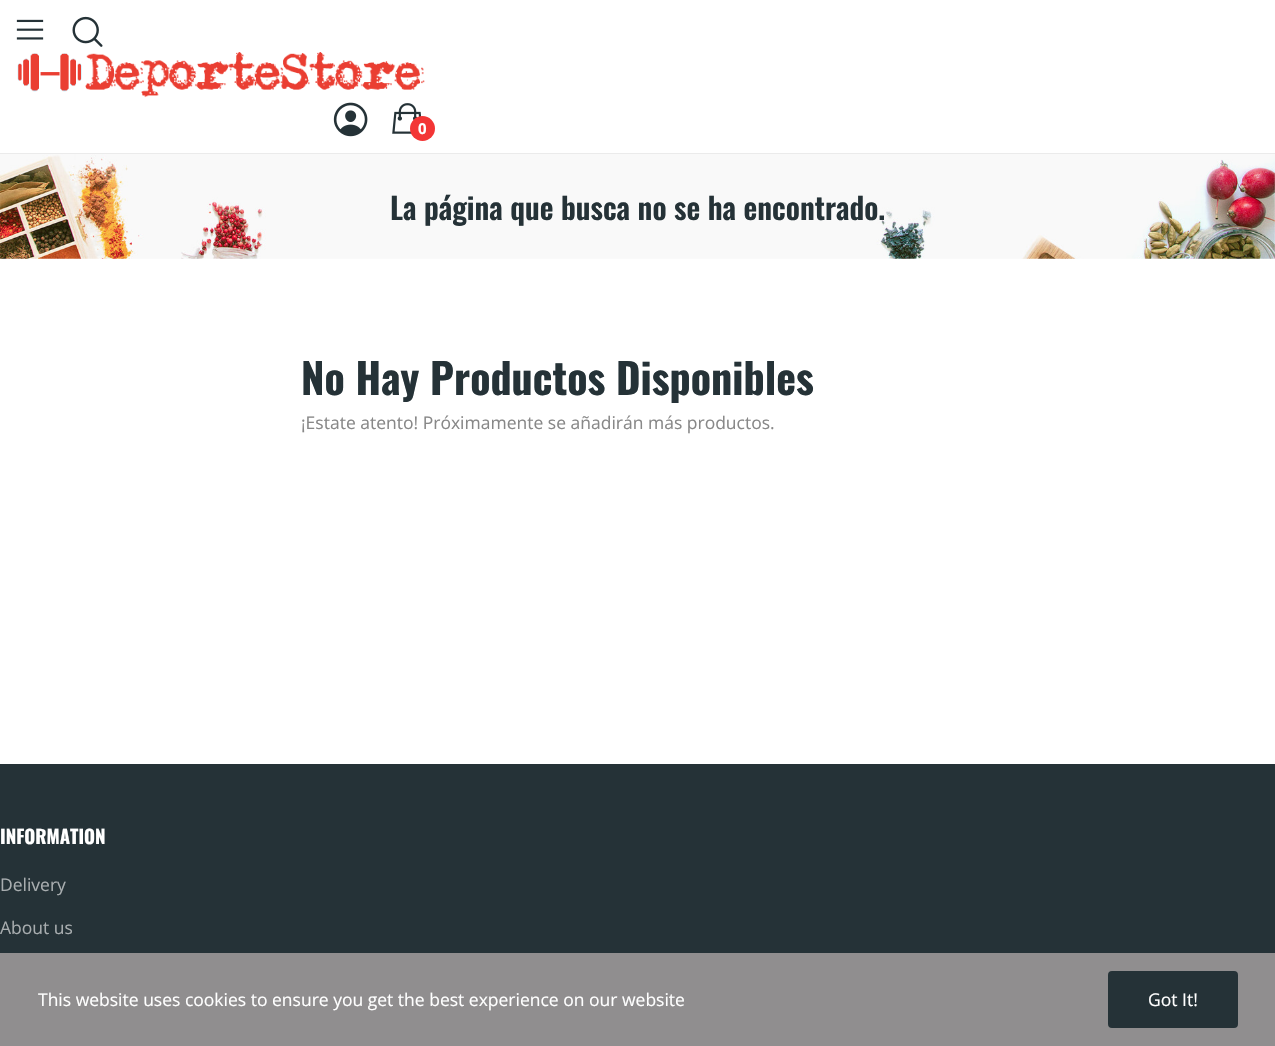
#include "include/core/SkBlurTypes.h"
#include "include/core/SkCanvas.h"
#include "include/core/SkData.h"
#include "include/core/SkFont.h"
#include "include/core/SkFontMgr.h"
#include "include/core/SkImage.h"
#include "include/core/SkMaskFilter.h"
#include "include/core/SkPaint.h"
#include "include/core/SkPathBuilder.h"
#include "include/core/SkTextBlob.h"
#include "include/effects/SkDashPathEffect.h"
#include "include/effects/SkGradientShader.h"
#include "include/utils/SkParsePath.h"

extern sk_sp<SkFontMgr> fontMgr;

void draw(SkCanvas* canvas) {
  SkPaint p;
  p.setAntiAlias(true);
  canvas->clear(SK_ColorWHITE);
  p.setColor(SkColorSetRGB(235, 235, 235));
  canvas->drawRect(SkRect::MakeLTRB(0, 153, 1275, 154), p);
  canvas->drawImageRect(SkImages::DeferredFromEncodedData(SkData::MakeFromFileName("images/1.png")), SkRect::MakeLTRB(16, 19, 44, 40), SkSamplingOptions());
  canvas->drawImageRect(SkImages::DeferredFromEncodedData(SkData::MakeFromFileName("images/2.png")), SkRect::MakeLTRB(72, 16, 103, 47), SkSamplingOptions());
  canvas->drawImageRect(SkImages::DeferredFromEncodedData(SkData::MakeFromFileName("images/3.png")), SkRect::MakeLTRB(17, 52, 425, 98), SkSamplingOptions());
  canvas->drawImageRect(SkImages::DeferredFromEncodedData(SkData::MakeFromFileName("images/4.png")), SkRect::MakeLTRB(333, 102, 368, 137), SkSamplingOptions());
  canvas->drawImageRect(SkImages::DeferredFromEncodedData(SkData::MakeFromFileName("images/5.png")), SkRect::MakeLTRB(392, 103, 422, 134), SkSamplingOptions());
  p.setColor(SkColorSetRGB(243, 53, 53));
  canvas->drawCircle(422.5f, 128.5f, 12.5f, p);
  canvas->drawImageRect(SkImages::DeferredFromEncodedData(SkData::MakeFromFileName("images/6.png")), SkRect::MakeLTRB(0, 154, 1275, 259), SkSamplingOptions());
  p.setColor(SkColorSetRGB(37, 50, 55));
  canvas->drawRect(SkRect::MakeLTRB(0, 764, 1275, 953), p);
  p.setColor(SkColorSetRGB(144, 142, 143));
  canvas->drawRect(SkRect::MakeLTRB(0, 953, 1275, 1046), p);
  p.setColor(SkColorSetRGB(37, 50, 55));
  canvas->drawRoundRect(SkRect::MakeLTRB(1109.5f, 972.5f, 1236.5f, 1026.5f), 2.5f, 2.5f, p);
  p.setStyle(SkPaint::kStroke_Style);
  p.setStrokeWidth(3);
  canvas->drawRoundRect(SkRect::MakeLTRB(1109.5f, 972.5f, 1236.5f, 1026.5f), 2.5f, 2.5f, p);
  SkFont font1(fontMgr->matchFamilyStyle("Open Sans", SkFontStyle::Bold()), 15);
  font1.setSubpixel(true);
  p.setStyle(SkPaint::kFill_Style);
  p.setColor(SK_ColorWHITE);
  canvas->drawString("0", 418, 134, font1, p);
  SkFont font2(fontMgr->matchFamilyStyle("Oswald", SkFontStyle(600, SkFontStyle::kNormal_Width, SkFontStyle::kUpright_Slant)), 30);
  font2.setSubpixel(true);
  p.setColor(SkColorSetRGB(37, 50, 55));
  canvas->drawString("La página que busca no se ha encontrado.", 390, 220, font2, p);
  SkFont font3(fontMgr->matchFamilyStyle("Oswald", SkFontStyle::Bold()), 42);
  font3.setSubpixel(true);
  canvas->drawString("No Hay Productos Disponibles", 301, 395, font3, p);
  SkFont font4(fontMgr->matchFamilyStyle("Open Sans", SkFontStyle::Normal()), 17.5f);
  font4.setSubpixel(true);
  p.setColor(SkColorSetRGB(136, 136, 136));
  canvas->drawString("¡Estate atento! Próximamente se añadirán más productos.", 301, 429, font4, p);
  SkFont font5(fontMgr->matchFamilyStyle("Oswald", SkFontStyle::Bold()), 18.75f);
  font5.setSubpixel(true);
  p.setColor(SK_ColorWHITE);
  canvas->drawString("INFORMATION", 0, 844, font5, p);
  p.setColor(SkColorSetRGB(168, 173, 175));
  canvas->drawString("Delivery", 0, 891, font4, p);
  canvas->drawString("About us", 0, 934, font4, p);
  p.setColor(SK_ColorWHITE);
  canvas->drawString("This website uses cookies to ensure you get the best experience on our website", 38, 1006, font4, p);
  canvas->drawString("Got It!", 1148, 1006, font4, p);
}
